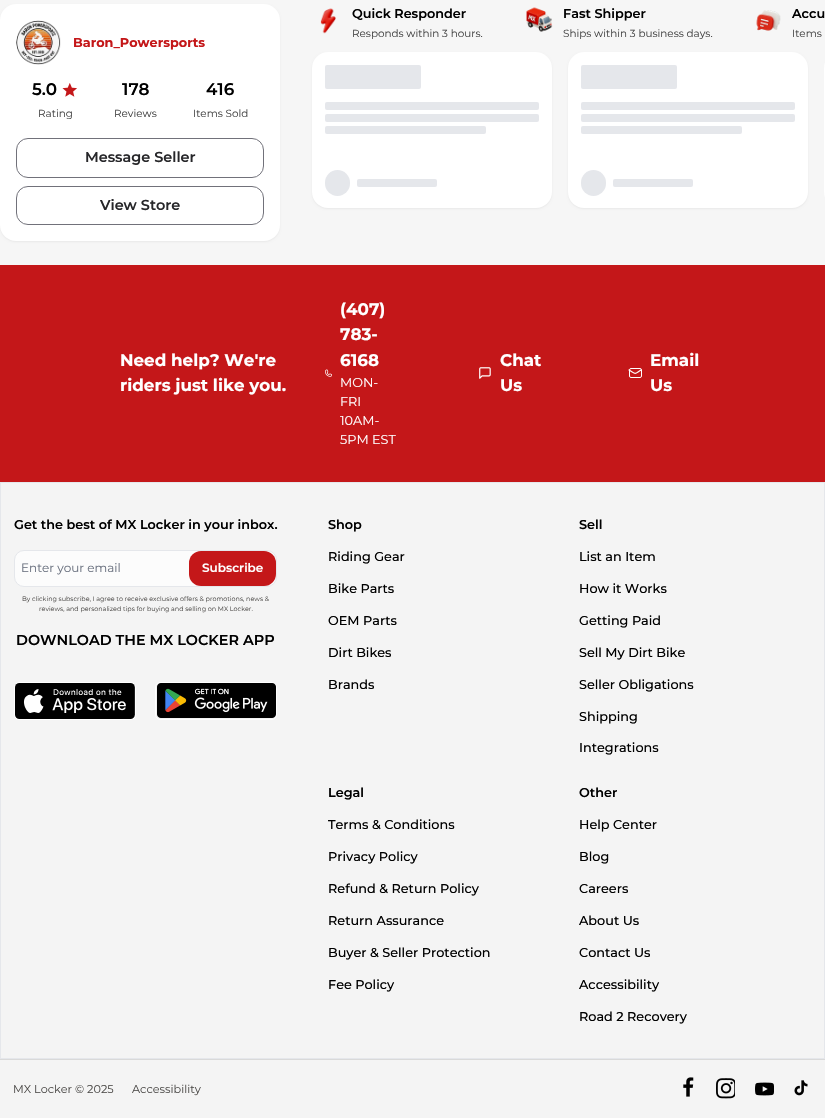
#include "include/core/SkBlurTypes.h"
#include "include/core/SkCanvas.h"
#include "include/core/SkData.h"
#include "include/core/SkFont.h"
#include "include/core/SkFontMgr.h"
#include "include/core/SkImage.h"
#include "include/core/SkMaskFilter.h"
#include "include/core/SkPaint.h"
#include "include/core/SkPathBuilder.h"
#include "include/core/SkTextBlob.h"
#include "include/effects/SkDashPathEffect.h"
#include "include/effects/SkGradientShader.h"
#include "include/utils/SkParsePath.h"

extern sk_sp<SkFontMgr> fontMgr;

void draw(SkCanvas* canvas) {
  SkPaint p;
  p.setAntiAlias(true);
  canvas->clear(SkColorSetRGB(196, 23, 25));
  p.setColor(SkColorSetRGB(246, 246, 246));
  canvas->drawRect(SkRect::MakeLTRB(0, 0, 825, 265), p);
  canvas->drawImageRect(SkImages::DeferredFromEncodedData(SkData::MakeFromFileName("images/1.png")), SkRect::MakeLTRB(320, 8, 336, 34), SkSamplingOptions());
  canvas->drawImageRect(SkImages::DeferredFromEncodedData(SkData::MakeFromFileName("images/2.png")), SkRect::MakeLTRB(526, 7, 553, 32), SkSamplingOptions());
  canvas->drawImageRect(SkImages::DeferredFromEncodedData(SkData::MakeFromFileName("images/3.png")), SkRect::MakeLTRB(756, 10, 781, 31), SkSamplingOptions());
  p.setColor(SkColorSetARGB(13, 0, 0, 0));
  p.setMaskFilter(SkMaskFilter::MakeBlur(kNormal_SkBlurStyle, 1));
  canvas->drawRoundRect(SkRect::MakeLTRB(312, 53, 552, 209), 16, 16, p);
  p.setMaskFilter(nullptr);
  p.setColor(SK_ColorWHITE);
  canvas->drawRoundRect(SkRect::MakeLTRB(312, 52, 552, 208), 16, 16, p);
  p.setColor(SkColorSetRGB(229, 231, 235));
  canvas->drawRoundRect(SkRect::MakeLTRB(325, 65, 421, 89), 2, 2, p);
  canvas->drawRoundRect(SkRect::MakeLTRB(325, 102, 539, 110), 2, 2, p);
  canvas->drawRoundRect(SkRect::MakeLTRB(325, 114, 539, 122), 2, 2, p);
  canvas->drawRoundRect(SkRect::MakeLTRB(325, 126, 486, 134), 2, 2, p);
  canvas->drawRoundRect(SkRect::MakeLTRB(325, 170, 350, 196), 12.5f, 12.5f, p);
  canvas->drawRoundRect(SkRect::MakeLTRB(357, 179, 437, 187), 2, 2, p);
  p.setColor(SkColorSetARGB(13, 0, 0, 0));
  p.setMaskFilter(SkMaskFilter::MakeBlur(kNormal_SkBlurStyle, 1));
  canvas->drawRoundRect(SkRect::MakeLTRB(568, 53, 808, 209), 16, 16, p);
  p.setMaskFilter(nullptr);
  p.setColor(SK_ColorWHITE);
  canvas->drawRoundRect(SkRect::MakeLTRB(568, 52, 808, 208), 16, 16, p);
  p.setColor(SkColorSetRGB(229, 231, 235));
  canvas->drawRoundRect(SkRect::MakeLTRB(581, 65, 677, 89), 2, 2, p);
  canvas->drawRoundRect(SkRect::MakeLTRB(581, 102, 795, 110), 2, 2, p);
  canvas->drawRoundRect(SkRect::MakeLTRB(581, 114, 795, 122), 2, 2, p);
  canvas->drawRoundRect(SkRect::MakeLTRB(581, 126, 742, 134), 2, 2, p);
  canvas->drawRoundRect(SkRect::MakeLTRB(581, 170, 606, 196), 12.5f, 12.5f, p);
  canvas->drawRoundRect(SkRect::MakeLTRB(613, 179, 693, 187), 2, 2, p);
  p.setColor(SK_ColorWHITE);
  canvas->drawPath(SkPathBuilder().moveTo(840, 52).lineTo(825, 52).lineTo(825, 208).lineTo(840, 208).cubicTo(831, 208, 824, 201, 824, 192).lineTo(824, 68).cubicTo(824, 59, 831, 52, 840, 52).close().detach(), p);
  p.setColor(SkColorSetARGB(13, 0, 0, 0));
  p.setMaskFilter(SkMaskFilter::MakeBlur(kNormal_SkBlurStyle, 1));
  canvas->drawRoundRect(SkRect::MakeLTRB(0, 5, 280, 242), 16, 16, p);
  p.setMaskFilter(nullptr);
  p.setColor(SK_ColorWHITE);
  canvas->drawRoundRect(SkRect::MakeLTRB(0, 4, 280, 241), 16, 16, p);
  canvas->drawImageRect(SkImages::DeferredFromEncodedData(SkData::MakeFromFileName("images/4.png")), SkRect::MakeLTRB(16, 20, 61, 65), SkSamplingOptions());
  canvas->drawImageRect(SkImages::DeferredFromEncodedData(SkData::MakeFromFileName("images/5.png")), SkRect::MakeLTRB(62, 83, 77, 97), SkSamplingOptions());
  p.setStyle(SkPaint::kStroke_Style);
  p.setStrokeWidth(1);
  p.setColor(SkColorSetRGB(113, 113, 122));
  canvas->drawRoundRect(SkRect::MakeLTRB(16.5f, 138.5f, 263.5f, 177.5f), 11.5f, 11.5f, p);
  canvas->drawRoundRect(SkRect::MakeLTRB(16.5f, 186.5f, 263.5f, 224.5f), 11.5f, 11.5f, p);
  canvas->drawImageRect(SkImages::DeferredFromEncodedData(SkData::MakeFromFileName("images/6.png")), SkRect::MakeLTRB(325, 369, 332, 377), SkSamplingOptions());
  canvas->drawImageRect(SkImages::DeferredFromEncodedData(SkData::MakeFromFileName("images/7.png")), SkRect::MakeLTRB(479, 367, 491, 379), SkSamplingOptions());
  p.setColor(SK_ColorWHITE);
  canvas->drawRoundRect(SkRect::MakeLTRB(629.5f, 368.5f, 641.5f, 377.5f), 1.5f, 1.5f, p);
  p.setStrokeWidth(1.2f);
  p.setStrokeCap(SkPaint::kRound_Cap);
  p.setStrokeJoin(SkPaint::kRound_Join);
  canvas->drawPath(SkPathBuilder().moveTo(641, 370).cubicTo(634, 374.5f, 636.5f, 374.5f, 629, 370).detach(), p);
  p.setStyle(SkPaint::kFill_Style);
  p.setColor(SkColorSetRGB(244, 244, 244));
  canvas->drawRect(SkRect::MakeLTRB(0.5f, 482.5f, 824.5f, 1058.5f), p);
  p.setStyle(SkPaint::kStroke_Style);
  p.setStrokeWidth(1);
  p.setStrokeCap(SkPaint::kButt_Cap);
  p.setStrokeJoin(SkPaint::kMiter_Join);
  p.setColor(SkColorSetRGB(229, 231, 235));
  canvas->drawRect(SkRect::MakeLTRB(0.5f, 482.5f, 824.5f, 1058.5f), p);
  p.setStyle(SkPaint::kFill_Style);
  p.setColor(SkColorSetRGB(252, 252, 252));
  canvas->drawRoundRect(SkRect::MakeLTRB(14.5f, 550.5f, 276.5f, 586.5f), 9.5f, 9.5f, p);
  p.setStyle(SkPaint::kStroke_Style);
  p.setColor(SkColorSetRGB(229, 231, 235));
  canvas->drawRoundRect(SkRect::MakeLTRB(14.5f, 550.5f, 276.5f, 586.5f), 9.5f, 9.5f, p);
  p.setStyle(SkPaint::kFill_Style);
  p.setColor(SkColorSetRGB(196, 23, 25));
  canvas->drawRoundRect(SkRect::MakeLTRB(189, 551, 276, 586), 12, 12, p);
  p.setStyle(SkPaint::kStroke_Style);
  p.setColor(SK_ColorWHITE);
  canvas->drawRoundRect(SkRect::MakeLTRB(14.5f, 682.5f, 135.5f, 719.5f), 4.5f, 4.5f, p);
  canvas->drawImageRect(SkImages::DeferredFromEncodedData(SkData::MakeFromFileName("images/8.png")), SkRect::MakeLTRB(15, 683, 135, 719), SkSamplingOptions());
  canvas->drawRoundRect(SkRect::MakeLTRB(155.5f, 682.5f, 276.5f, 719.5f), 4.5f, 4.5f, p);
  canvas->drawImageRect(SkImages::DeferredFromEncodedData(SkData::MakeFromFileName("images/9.png")), SkRect::MakeLTRB(157, 683, 276, 718), SkSamplingOptions());
  p.setStyle(SkPaint::kFill_Style);
  p.setColor(SkColorSetRGB(244, 244, 244));
  canvas->drawRect(SkRect::MakeLTRB(0, 1060, 825, 1118), p);
  p.setColor(SkColorSetRGB(217, 217, 217));
  canvas->drawRect(SkRect::MakeLTRB(0, 1059, 825, 1060), p);
  canvas->drawImageRect(SkImages::DeferredFromEncodedData(SkData::MakeFromFileName("images/10.png")), SkRect::MakeLTRB(683, 1077, 694, 1097), SkSamplingOptions());
  canvas->drawImageRect(SkImages::DeferredFromEncodedData(SkData::MakeFromFileName("images/11.png")), SkRect::MakeLTRB(716, 1078, 735, 1099), SkSamplingOptions());
  canvas->drawImageRect(SkImages::DeferredFromEncodedData(SkData::MakeFromFileName("images/12.png")), SkRect::MakeLTRB(755, 1082, 774, 1096), SkSamplingOptions());
  canvas->drawImageRect(SkImages::DeferredFromEncodedData(SkData::MakeFromFileName("images/13.png")), SkRect::MakeLTRB(794, 1080, 808, 1096), SkSamplingOptions());
  SkFont font1(fontMgr->matchFamilyStyle("Montserrat", SkFontStyle(600, SkFontStyle::kNormal_Width, SkFontStyle::kUpright_Slant)), 12.8f);
  font1.setSubpixel(true);
  p.setColor(SK_ColorBLACK);
  canvas->drawString("Quick Responder", 352, 18, font1, p);
  SkFont font2(fontMgr->matchFamilyStyle("Montserrat", SkFontStyle::Normal()), 10.4f);
  font2.setSubpixel(true);
  p.setColor(SkColorSetRGB(68, 68, 68));
  canvas->drawString("Responds within 3 hours.", 352, 37, font2, p);
  p.setColor(SK_ColorBLACK);
  canvas->drawString("Fast Shipper", 563, 18, font1, p);
  p.setColor(SkColorSetRGB(68, 68, 68));
  canvas->drawString("Ships within 3 business days.", 563, 37, font2, p);
  p.setColor(SK_ColorBLACK);
  canvas->drawString("Accu", 792, 18, font1, p);
  p.setColor(SkColorSetRGB(68, 68, 68));
  canvas->drawString("Items", 792, 37, font2, p);
  SkFont font3(fontMgr->matchFamilyStyle("Montserrat", SkFontStyle::Bold()), 12.8f);
  font3.setSubpixel(true);
  p.setColor(SkColorSetRGB(196, 23, 25));
  canvas->drawString("Baron_Powersports", 73, 47, font3, p);
  SkFont font4(fontMgr->matchFamilyStyle("Montserrat", SkFontStyle(600, SkFontStyle::kNormal_Width, SkFontStyle::kUpright_Slant)), 16.75f);
  font4.setSubpixel(true);
  p.setColor(SK_ColorBLACK);
  canvas->drawString("5.0", 32, 95, font4, p);
  p.setColor(SkColorSetRGB(68, 68, 68));
  canvas->drawString("Rating", 38, 117, font2, p);
  p.setColor(SK_ColorBLACK);
  canvas->drawString("178", 122, 95, font4, p);
  p.setColor(SkColorSetRGB(68, 68, 68));
  canvas->drawString("Reviews", 114, 117, font2, p);
  p.setColor(SK_ColorBLACK);
  canvas->drawString("416", 206, 95, font4, p);
  p.setColor(SkColorSetRGB(68, 68, 68));
  canvas->drawString("Items Sold", 193, 117, font2, p);
  SkFont font5(fontMgr->matchFamilyStyle("Montserrat", SkFontStyle(600, SkFontStyle::kNormal_Width, SkFontStyle::kUpright_Slant)), 14.4f);
  font5.setSubpixel(true);
  p.setColor(SkColorSetRGB(39, 39, 42));
  canvas->drawString("Message Seller", 85, 162, font5, p);
  canvas->drawString("View Store", 100, 210, font5, p);
  SkFont font6(fontMgr->matchFamilyStyle("Montserrat", SkFontStyle::Bold()), 16.75f);
  font6.setSubpixel(true);
  p.setColor(SK_ColorWHITE);
  canvas->drawString("Need help? We're", 120, 366, font6, p);
  canvas->drawString("riders just like you.", 120, 391, font6, p);
  canvas->drawString("(407)", 340, 315, font6, p);
  canvas->drawString("783-", 340, 340, font6, p);
  canvas->drawString("6168", 340, 366, font6, p);
  SkFont font7(fontMgr->matchFamilyStyle("Montserrat", SkFontStyle::Normal()), 12.8f);
  font7.setSubpixel(true);
  canvas->drawString("MON-", 340, 387, font7, p);
  canvas->drawString("FRI", 340, 406, font7, p);
  canvas->drawString("10AM-", 340, 425, font7, p);
  canvas->drawString("5PM EST", 340, 444, font7, p);
  canvas->drawString("Chat", 500, 366, font6, p);
  canvas->drawString("Us", 500, 391, font6, p);
  canvas->drawString("Email", 650, 366, font6, p);
  canvas->drawString("Us", 650, 391, font6, p);
  p.setColor(SK_ColorBLACK);
  canvas->drawString("Get the best of MX Locker in your inbox.", 14, 529, font1, p);
  SkFont font8(fontMgr->matchFamilyStyle("Montserrat", SkFontStyle::Normal()), 12);
  font8.setSubpixel(true);
  p.setColor(SkColorSetRGB(107, 114, 128));
  canvas->drawString("Enter your email", 21, 572, font8, p);
  SkFont font9(fontMgr->matchFamilyStyle("Montserrat", SkFontStyle(600, SkFontStyle::kNormal_Width, SkFontStyle::kUpright_Slant)), 12);
  font9.setSubpixel(true);
  p.setColor(SK_ColorWHITE);
  canvas->drawString("Subscribe", 202, 572, font9, p);
  SkFont font10(fontMgr->matchFamilyStyle("Montserrat", SkFontStyle::Normal()), 6.4f);
  font10.setSubpixel(true);
  p.setColor(SkColorSetRGB(79, 77, 75));
  canvas->drawString("By clicking subscribe, I agree to receive exclusive offers & promotions, news &", 22, 601, font10, p);
  canvas->drawString("reviews, and personalized tips for buying and selling on MX Locker.", 39, 611, font10, p);
  p.setColor(SK_ColorBLACK);
  canvas->drawString("DOWNLOAD THE MX LOCKER APP", 16, 645, font5, p);
  canvas->drawString("Shop", 328, 529, font1, p);
  SkFont font11(fontMgr->matchFamilyStyle("Montserrat", SkFontStyle(500, SkFontStyle::kNormal_Width, SkFontStyle::kUpright_Slant)), 12.8f);
  font11.setSubpixel(true);
  canvas->drawString("Riding Gear", 328, 561, font11, p);
  canvas->drawString("Bike Parts", 328, 593, font11, p);
  canvas->drawString("OEM Parts", 328, 625, font11, p);
  canvas->drawString("Dirt Bikes", 328, 657, font11, p);
  canvas->drawString("Brands", 328, 689, font11, p);
  canvas->drawString("Sell", 579, 529, font1, p);
  canvas->drawString("List an Item", 579, 561, font11, p);
  canvas->drawString("How it Works", 579, 593, font11, p);
  canvas->drawString("Getting Paid", 579, 625, font11, p);
  canvas->drawString("Sell My Dirt Bike", 579, 657, font11, p);
  canvas->drawString("Seller Obligations", 579, 689, font11, p);
  canvas->drawString("Shipping", 579, 721, font11, p);
  canvas->drawString("Integrations", 579, 752, font11, p);
  canvas->drawString("Legal", 328, 797, font1, p);
  canvas->drawString("Terms & Conditions", 328, 829, font11, p);
  canvas->drawString("Privacy Policy", 328, 861, font11, p);
  canvas->drawString("Refund & Return Policy", 328, 893, font11, p);
  canvas->drawString("Return Assurance", 328, 925, font11, p);
  canvas->drawString("Buyer & Seller Protection", 328, 957, font11, p);
  canvas->drawString("Fee Policy", 328, 989, font11, p);
  canvas->drawString("Other", 579, 797, font1, p);
  canvas->drawString("Help Center", 579, 829, font11, p);
  canvas->drawString("Blog", 579, 861, font11, p);
  canvas->drawString("Careers", 579, 893, font11, p);
  canvas->drawString("About Us", 579, 925, font11, p);
  canvas->drawString("Contact Us", 579, 957, font11, p);
  canvas->drawString("Accessibility", 579, 989, font11, p);
  canvas->drawString("Road 2 Recovery", 579, 1021, font11, p);
  SkFont font12(fontMgr->matchFamilyStyle("Montserrat", SkFontStyle::Normal()), 11.25f);
  font12.setSubpixel(true);
  p.setColor(SkColorSetRGB(79, 77, 75));
  canvas->drawString("MX Locker © 2025", 13, 1093, font12, p);
  canvas->drawString("Accessibility", 132, 1093, font12, p);
}
